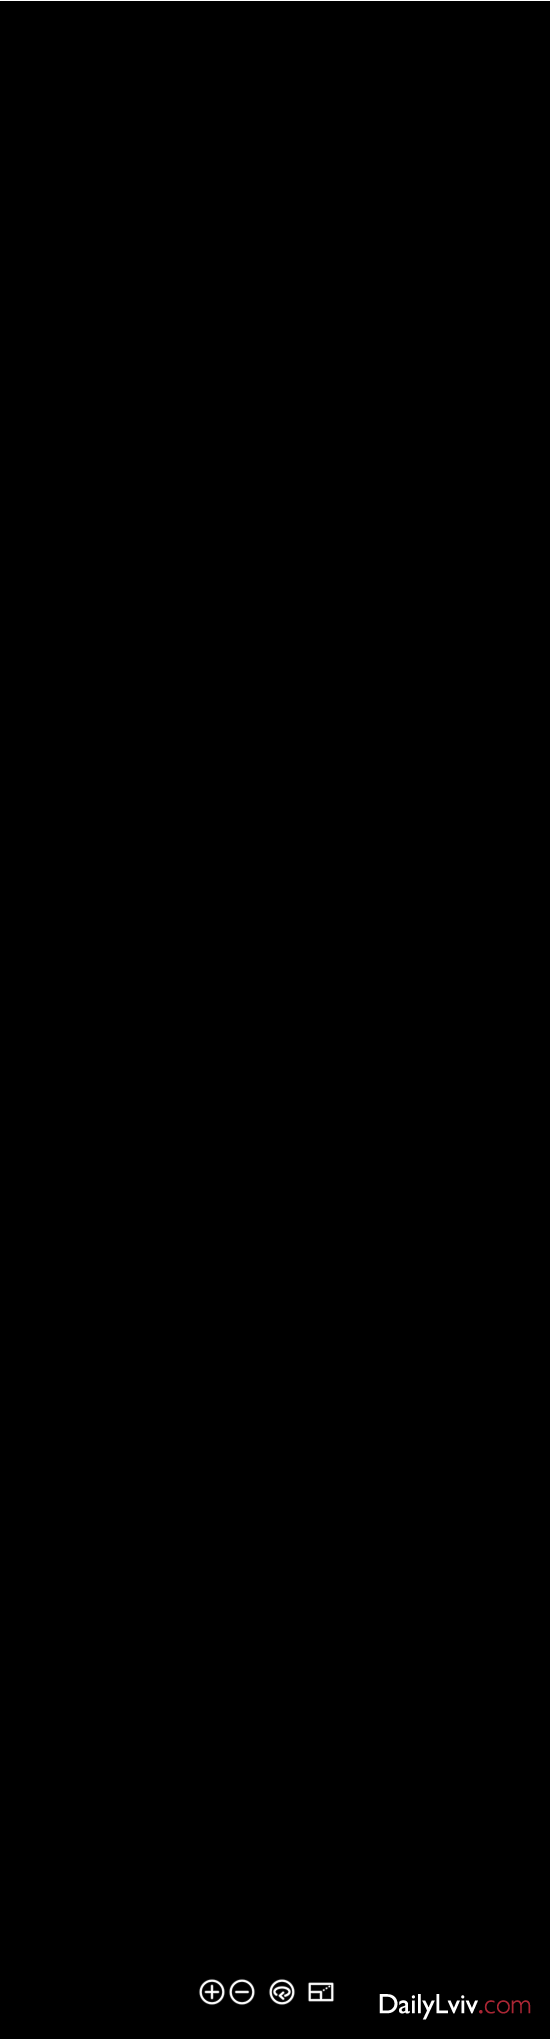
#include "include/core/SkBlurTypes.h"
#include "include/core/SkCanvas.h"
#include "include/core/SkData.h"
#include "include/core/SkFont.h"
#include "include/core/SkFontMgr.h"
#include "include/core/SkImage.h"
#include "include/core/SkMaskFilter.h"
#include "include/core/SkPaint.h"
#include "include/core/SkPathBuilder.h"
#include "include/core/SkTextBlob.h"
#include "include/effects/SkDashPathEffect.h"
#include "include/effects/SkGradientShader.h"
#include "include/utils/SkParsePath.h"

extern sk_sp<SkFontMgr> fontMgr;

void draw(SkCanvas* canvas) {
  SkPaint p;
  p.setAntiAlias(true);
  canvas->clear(SK_ColorWHITE);
  p.setColor(SK_ColorBLACK);
  canvas->drawRect(SkRect::MakeLTRB(0, 1, 550, 2039), p);
  canvas->drawImageRect(SkImages::DeferredFromEncodedData(SkData::MakeFromFileName("images/1.png")), SkRect::MakeLTRB(198, 1978, 226, 2006), SkSamplingOptions());
  canvas->drawImageRect(SkImages::DeferredFromEncodedData(SkData::MakeFromFileName("images/2.png")), SkRect::MakeLTRB(228, 1978, 256, 2006), SkSamplingOptions());
  canvas->drawImageRect(SkImages::DeferredFromEncodedData(SkData::MakeFromFileName("images/3.png")), SkRect::MakeLTRB(268, 1978, 296, 2006), SkSamplingOptions());
  canvas->drawImageRect(SkImages::DeferredFromEncodedData(SkData::MakeFromFileName("images/4.png")), SkRect::MakeLTRB(307, 1982, 335, 2002), SkSamplingOptions());
  canvas->drawImageRect(SkImages::DeferredFromEncodedData(SkData::MakeFromFileName("images/5.png")), SkRect::MakeLTRB(379, 1994, 531, 2020), SkSamplingOptions());
}
